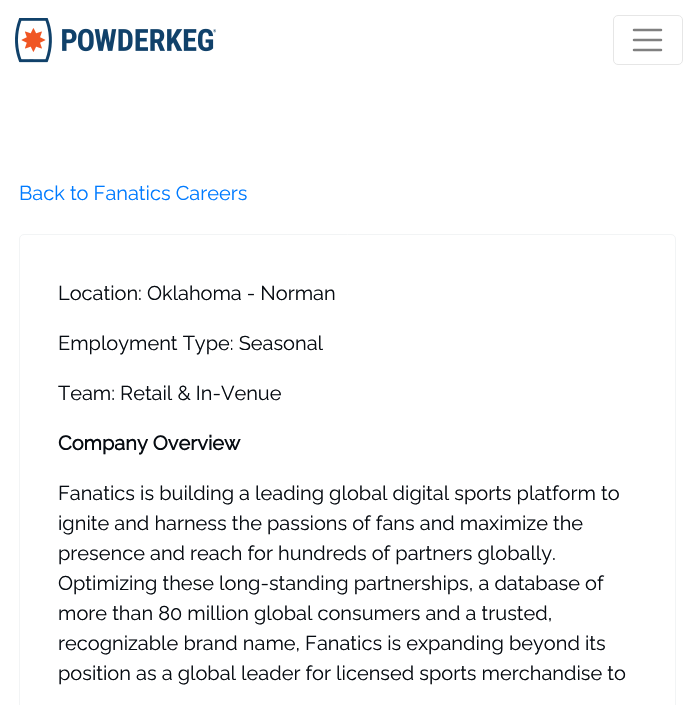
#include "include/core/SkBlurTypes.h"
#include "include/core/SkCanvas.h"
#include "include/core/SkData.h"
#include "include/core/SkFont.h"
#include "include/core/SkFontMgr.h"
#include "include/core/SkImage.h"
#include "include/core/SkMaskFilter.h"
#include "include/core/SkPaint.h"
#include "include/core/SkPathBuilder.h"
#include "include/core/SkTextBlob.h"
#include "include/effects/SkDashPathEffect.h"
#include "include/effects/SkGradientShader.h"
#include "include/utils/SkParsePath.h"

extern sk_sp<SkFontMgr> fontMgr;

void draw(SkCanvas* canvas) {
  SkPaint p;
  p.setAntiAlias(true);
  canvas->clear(SK_ColorWHITE);
  canvas->drawImageRect(SkImages::DeferredFromEncodedData(SkData::MakeFromFileName("images/1.png")), SkRect::MakeLTRB(15, 18, 216, 63), SkSamplingOptions());
  p.setStyle(SkPaint::kStroke_Style);
  p.setStrokeWidth(1);
  p.setColor(SkColorSetRGB(230, 230, 230));
  canvas->drawRoundRect(SkRect::MakeLTRB(613.5f, 15.5f, 682.5f, 64.5f), 4.5f, 4.5f, p);
  p.setStrokeWidth(2.5f);
  p.setStrokeCap(SkPaint::kRound_Cap);
  p.setColor(SkColorSetRGB(128, 128, 128));
  canvas->drawPath(SkPathBuilder().moveTo(634, 30).lineTo(661, 30).moveTo(634, 40).lineTo(661, 40).moveTo(634, 50).lineTo(661, 50).detach(), p);
  p.setStrokeWidth(1);
  p.setStrokeCap(SkPaint::kButt_Cap);
  p.setColor(SkColorSetRGB(242, 244, 245));
  canvas->drawRoundRect(SkRect::MakeLTRB(19.5f, 234.5f, 675.5f, 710.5f), 4.5f, 4.5f, p);
  SkFont font1(fontMgr->matchFamilyStyle("Raleway", SkFontStyle(100, SkFontStyle::kNormal_Width, SkFontStyle::kUpright_Slant)), 20);
  font1.setSubpixel(true);
  p.setStyle(SkPaint::kFill_Style);
  p.setColor(SkColorSetRGB(0, 123, 255));
  canvas->drawString("Back to Fanatics Careers", 19, 200, font1, p);
  p.setColor(SkColorSetRGB(7, 12, 18));
  canvas->drawString("Location: Oklahoma - Norman", 58, 300, font1, p);
  canvas->drawString("Employment Type: Seasonal", 58, 350, font1, p);
  canvas->drawString("Team: Retail & In-Venue", 58, 400, font1, p);
  SkFont font2(fontMgr->matchFamilyStyle("Raleway", SkFontStyle::Bold()), 20);
  font2.setSubpixel(true);
  canvas->drawString("Company Overview", 58, 450, font2, p);
  canvas->drawString("Fanatics is building a leading global digital sports platform to", 58, 500, font1, p);
  canvas->drawString("ignite and harness the passions of fans and maximize the", 58, 530, font1, p);
  canvas->drawString("presence and reach for hundreds of partners globally.", 58, 560, font1, p);
  canvas->drawString("Optimizing these long-standing partnerships, a database of", 58, 590, font1, p);
  canvas->drawString("more than 80 million global consumers and a trusted,", 58, 620, font1, p);
  canvas->drawString("recognizable brand name, Fanatics is expanding beyond its", 58, 650, font1, p);
  canvas->drawString("position as a global leader for licensed sports merchandise to", 58, 680, font1, p);
}
